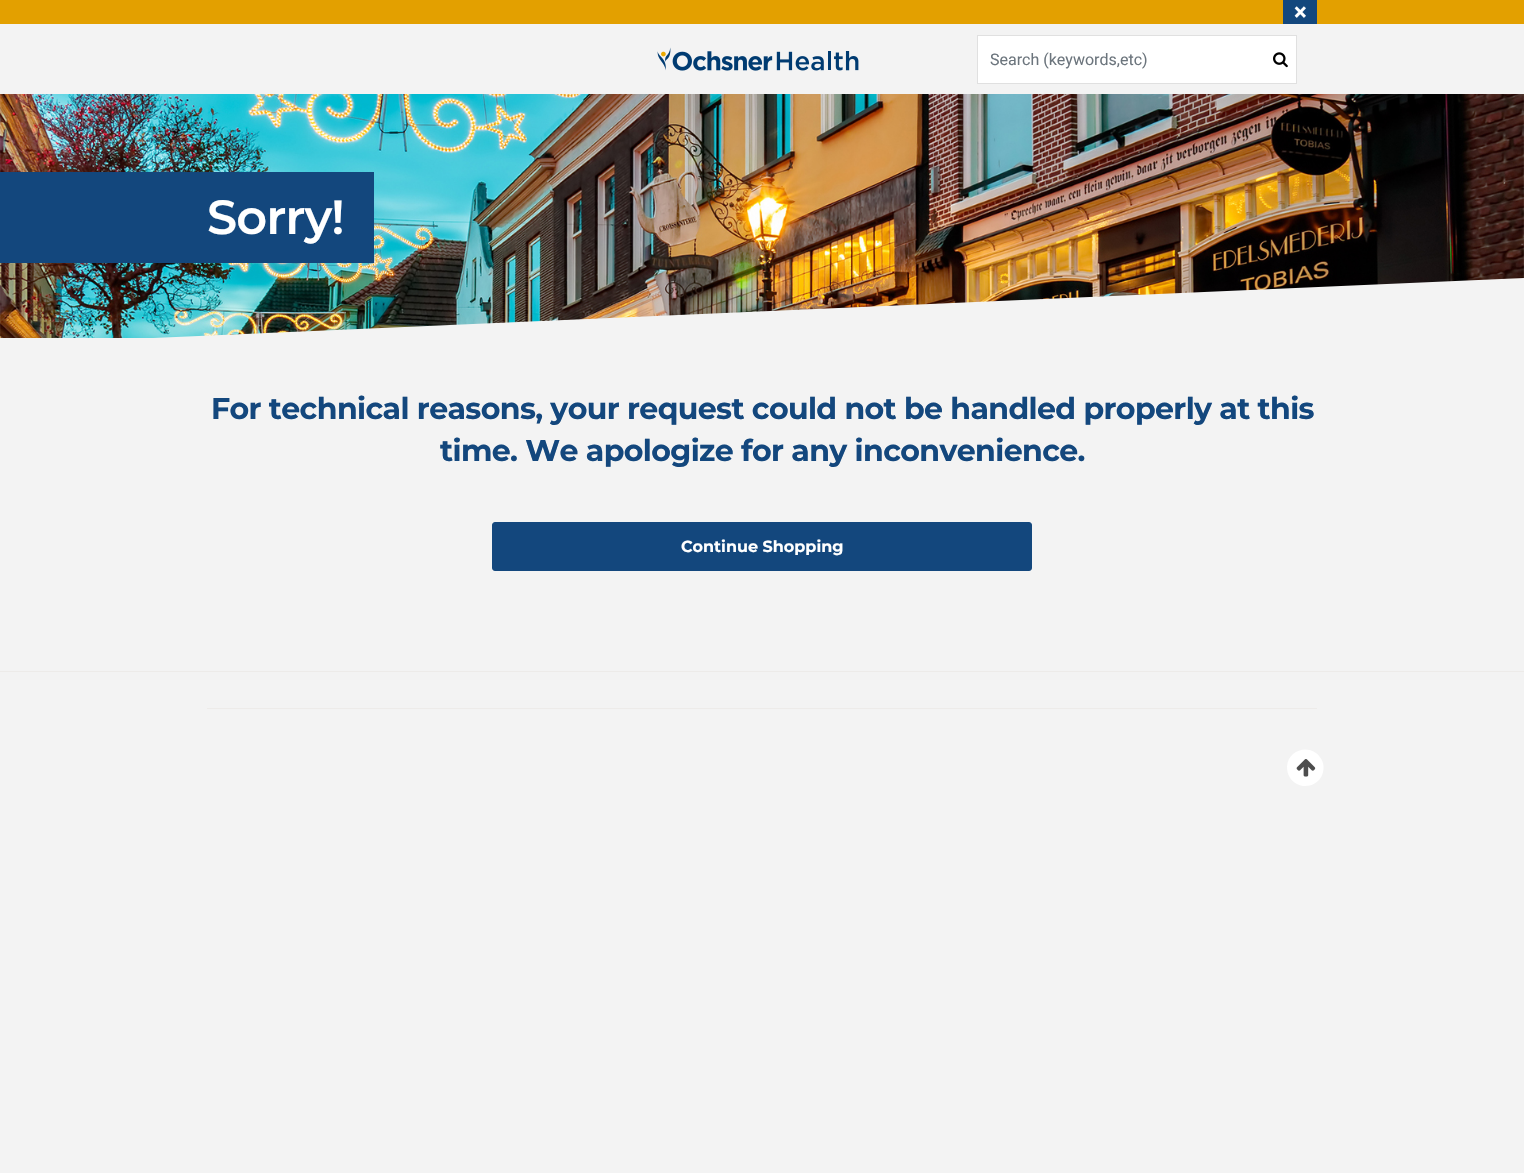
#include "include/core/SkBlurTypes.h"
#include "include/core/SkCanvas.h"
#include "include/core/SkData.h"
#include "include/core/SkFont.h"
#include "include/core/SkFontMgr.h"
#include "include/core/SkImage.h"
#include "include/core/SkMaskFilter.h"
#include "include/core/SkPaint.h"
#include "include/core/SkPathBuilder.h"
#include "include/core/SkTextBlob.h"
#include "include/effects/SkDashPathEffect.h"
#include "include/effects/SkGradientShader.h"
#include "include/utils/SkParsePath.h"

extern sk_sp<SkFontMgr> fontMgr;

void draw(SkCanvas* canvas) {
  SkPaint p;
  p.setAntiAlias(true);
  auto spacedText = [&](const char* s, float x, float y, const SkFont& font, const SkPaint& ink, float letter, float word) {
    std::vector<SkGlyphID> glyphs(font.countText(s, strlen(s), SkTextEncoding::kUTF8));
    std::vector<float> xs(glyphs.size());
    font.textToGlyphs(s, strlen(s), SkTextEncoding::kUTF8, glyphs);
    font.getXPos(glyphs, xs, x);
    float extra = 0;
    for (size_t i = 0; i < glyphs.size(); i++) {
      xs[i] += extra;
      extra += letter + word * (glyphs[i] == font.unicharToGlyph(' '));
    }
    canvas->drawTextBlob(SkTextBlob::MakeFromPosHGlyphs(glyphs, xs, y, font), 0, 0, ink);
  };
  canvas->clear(SkColorSetRGB(243, 243, 243));
  p.setColor(SkColorSetRGB(227, 160, 0));
  canvas->drawRect(SkRect::MakeLTRB(0, 0, 1524, 24), p);
  p.setColor(SkColorSetRGB(19, 71, 125));
  canvas->drawRect(SkRect::MakeLTRB(1283, 0, 1317, 24), p);
  canvas->drawImageRect(SkImages::DeferredFromEncodedData(SkData::MakeFromFileName("images/1.png")), SkRect::MakeLTRB(657, 47, 859, 71), SkSamplingOptions());
  p.setColor(SK_ColorWHITE);
  canvas->drawRect(SkRect::MakeLTRB(977.5f, 35.5f, 1296.5f, 83.5f), p);
  p.setStyle(SkPaint::kStroke_Style);
  p.setStrokeWidth(1);
  p.setColor(SkColorSetRGB(224, 224, 224));
  canvas->drawRect(SkRect::MakeLTRB(977.5f, 35.5f, 1296.5f, 83.5f), p);
  canvas->drawImageRect(SkImages::DeferredFromEncodedData(SkData::MakeFromFileName("images/2.png")), SkRect::MakeLTRB(1273, 52, 1288, 68), SkSamplingOptions());
  canvas->drawImageRect(SkImages::DeferredFromEncodedData(SkData::MakeFromFileName("images/3.png")), SkRect::MakeLTRB(0, 94, 1524, 338), SkSamplingOptions());
  p.setStyle(SkPaint::kFill_Style);
  p.setColor(SkColorSetRGB(19, 71, 125));
  canvas->drawRect(SkRect::MakeLTRB(0, 172, 374, 263), p);
  p.setColor(SkColorSetRGB(243, 243, 243));
  canvas->drawPath(SkPathBuilder().moveTo(1524, 338).lineTo(153, 338).lineTo(1524, 278).close().detach(), p);
  p.setColor(SkColorSetRGB(19, 71, 125));
  canvas->drawRoundRect(SkRect::MakeLTRB(492.5f, 522.5f, 1031.5f, 570.5f), 2.5f, 2.5f, p);
  p.setStyle(SkPaint::kStroke_Style);
  canvas->drawRoundRect(SkRect::MakeLTRB(492.5f, 522.5f, 1031.5f, 570.5f), 2.5f, 2.5f, p);
  p.setStyle(SkPaint::kFill_Style);
  p.setColor(SkColorSetRGB(237, 235, 233));
  canvas->drawRect(SkRect::MakeLTRB(0, 671, 1524, 672), p);
  canvas->drawRect(SkRect::MakeLTRB(207, 708, 1317, 709), p);
  p.setColor(SK_ColorWHITE);
  canvas->drawPath(SkPathBuilder().moveTo(1321, 758.5f).cubicTo(1323, 761.5f, 1324, 765.5f, 1323.5f, 769).cubicTo(1322.5f, 787, 1298.5f, 792.5f, 1289.5f, 777).cubicTo(1287.5f, 774, 1287, 770, 1287, 766.5f).cubicTo(1288, 748.5f, 1312, 743, 1321, 758.5f).close().detach(), p);
  canvas->drawImageRect(SkImages::DeferredFromEncodedData(SkData::MakeFromFileName("images/4.png")), SkRect::MakeLTRB(1296, 759, 1316, 777), SkSamplingOptions());
  SkFont font1(fontMgr->matchFamilyStyle("Roboto", SkFontStyle::Bold()), 24);
  font1.setSubpixel(true);
  canvas->drawString("×", 1294, 20, font1, p);
  SkFont font2(fontMgr->matchFamilyStyle("Roboto", SkFontStyle::Normal()), 16);
  font2.setSubpixel(true);
  p.setColor(SkColorSetRGB(108, 117, 125));
  canvas->drawString("Search (keywords,etc)", 990, 65, font2, p);
  SkFont font3(fontMgr->matchFamilyStyle("Montserrat", SkFontStyle(600, SkFontStyle::kNormal_Width, SkFontStyle::kUpright_Slant)), 48);
  font3.setSubpixel(true);
  p.setColor(SK_ColorWHITE);
  spacedText("Sorry!", 207, 234, font3, p, -1, 0);
  SkFont font4(fontMgr->matchFamilyStyle("Montserrat", SkFontStyle::Bold()), 30);
  font4.setSubpixel(true);
  p.setColor(SkColorSetRGB(19, 71, 125));
  spacedText("For technical reasons, your request could not be handled properly at this", 211, 419, font4, p, -0.6f, 0);
  spacedText("time. We apologize for any inconvenience.", 440, 461, font4, p, -0.6f, 0);
  SkFont font5(fontMgr->matchFamilyStyle("Montserrat", SkFontStyle::Bold()), 16);
  font5.setSubpixel(true);
  p.setColor(SK_ColorWHITE);
  canvas->drawString("Continue Shopping", 681, 552, font5, p);
}
